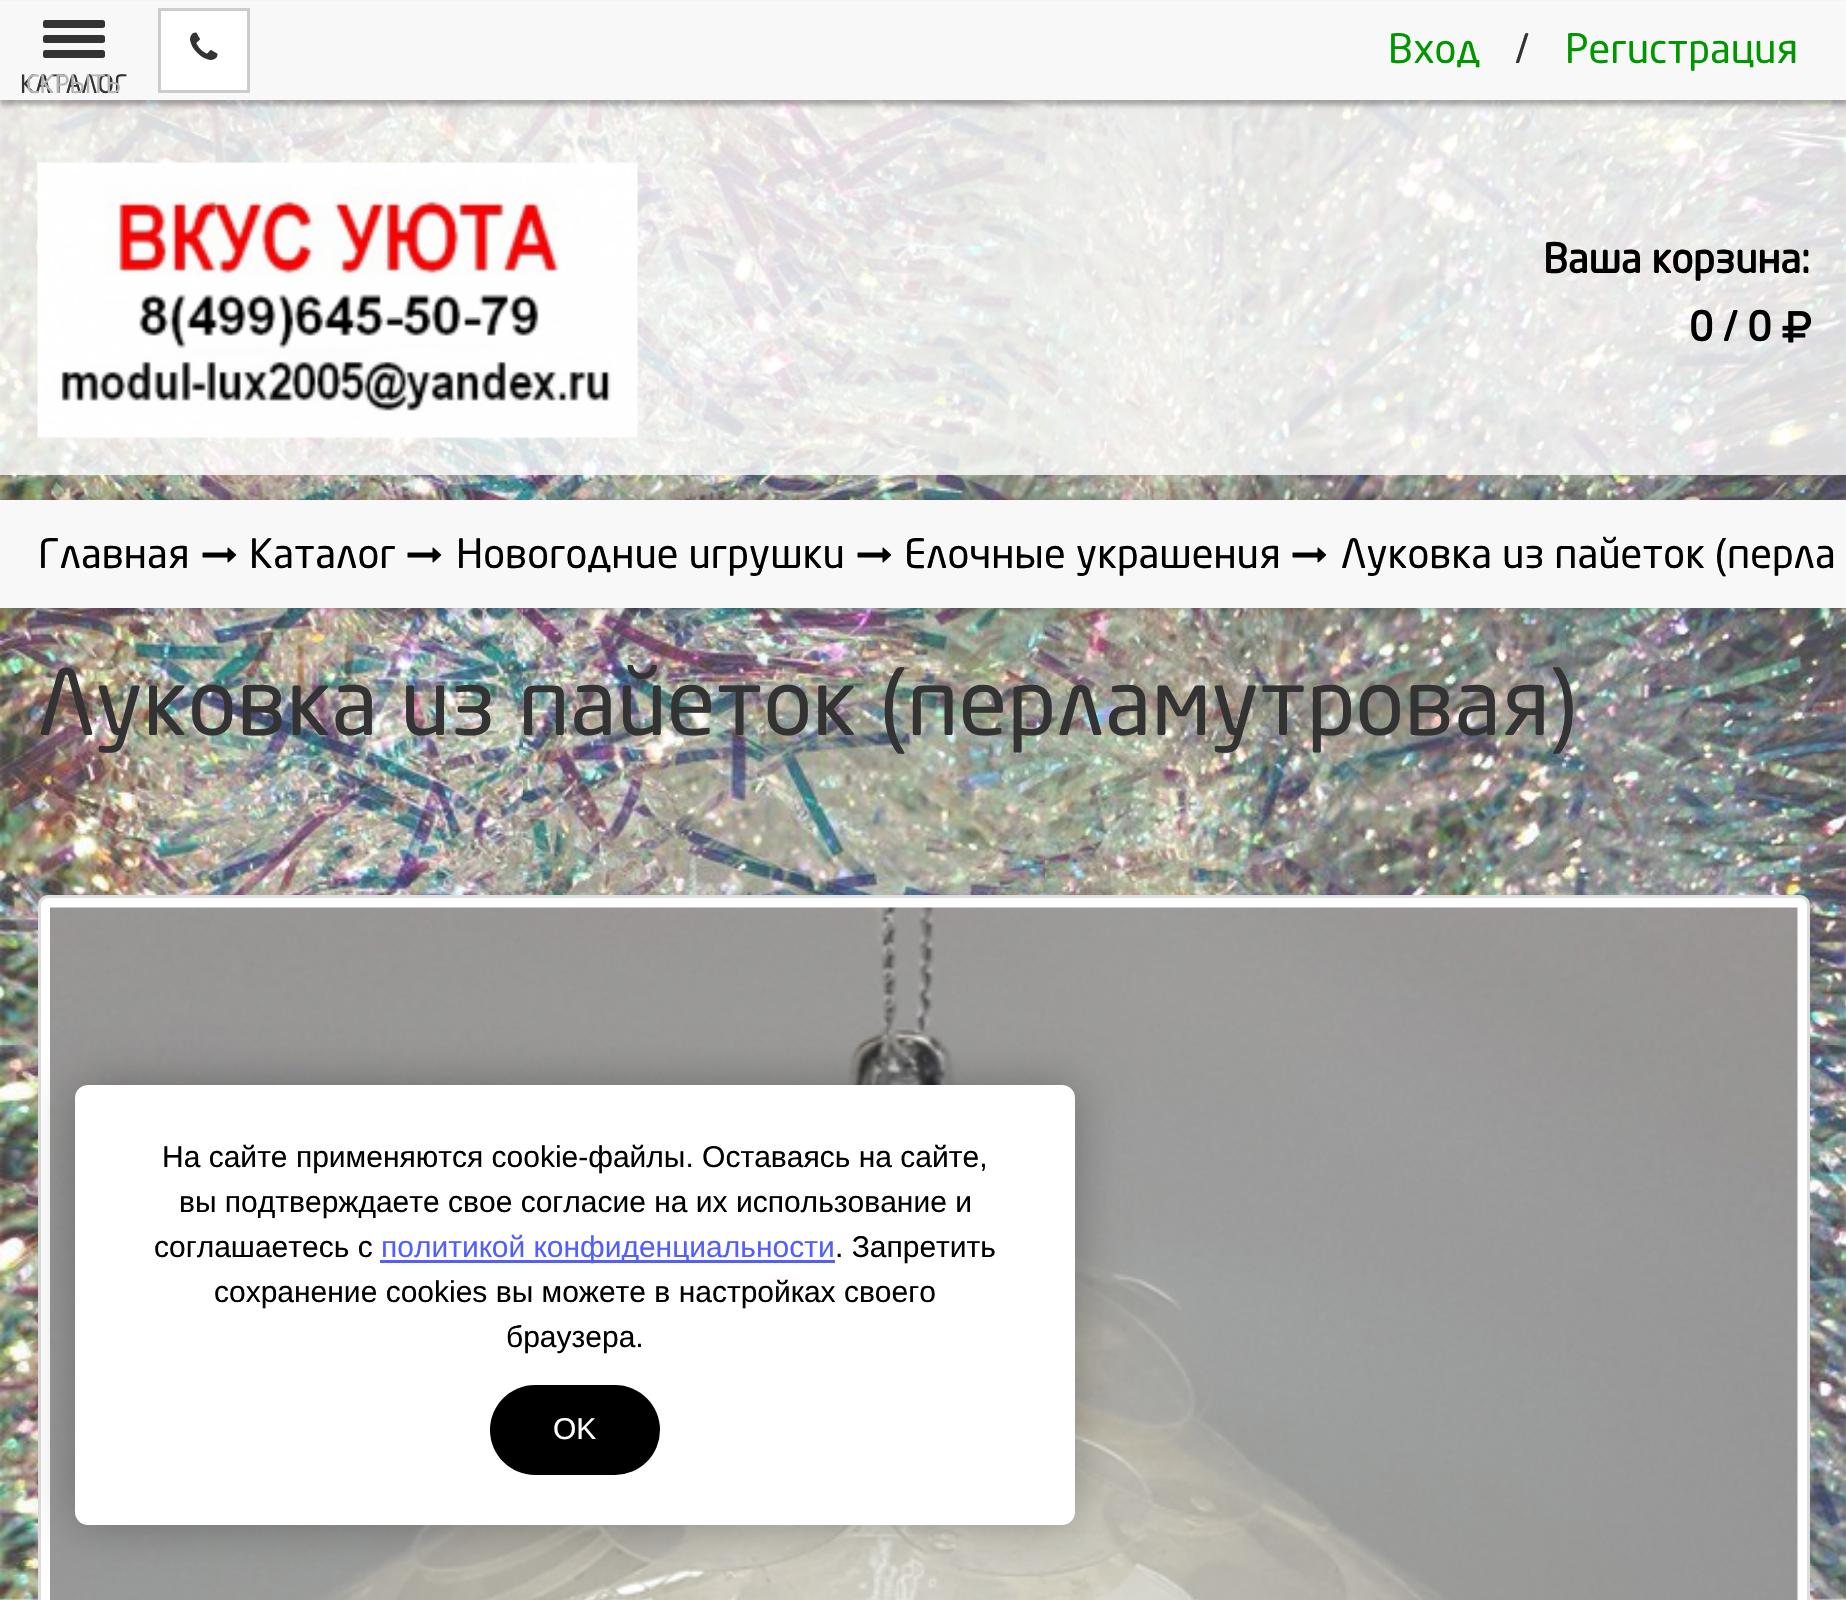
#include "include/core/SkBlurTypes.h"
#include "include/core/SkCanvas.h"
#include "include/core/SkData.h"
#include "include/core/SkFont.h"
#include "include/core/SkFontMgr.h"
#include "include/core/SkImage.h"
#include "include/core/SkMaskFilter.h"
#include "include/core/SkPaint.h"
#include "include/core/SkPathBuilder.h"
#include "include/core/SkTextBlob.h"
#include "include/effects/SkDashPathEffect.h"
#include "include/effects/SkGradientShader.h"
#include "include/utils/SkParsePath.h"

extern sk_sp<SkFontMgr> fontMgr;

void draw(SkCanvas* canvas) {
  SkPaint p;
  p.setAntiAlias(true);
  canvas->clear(SkColorSetRGB(248, 248, 248));
  canvas->drawImageRect(SkImages::DeferredFromEncodedData(SkData::MakeFromFileName("images/1.png")), SkRect::MakeLTRB(0, 100, 1846, 1600), SkSamplingOptions());
  p.setColor(SkColorSetARGB(204, 255, 255, 255));
  canvas->drawRect(SkRect::MakeLTRB(0, 100, 1846, 475), p);
  p.setColor(SkColorSetARGB(77, 0, 0, 0));
  p.setMaskFilter(SkMaskFilter::MakeBlur(kNormal_SkBlurStyle, 2.5f));
  canvas->drawRect(SkRect::MakeLTRB(0, 5, 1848, 105), p);
  p.setMaskFilter(nullptr);
  p.setColor(SkColorSetRGB(248, 248, 248));
  canvas->drawRect(SkRect::MakeLTRB(0, 1, 1846, 100), p);
  p.setColor(SkColorSetRGB(51, 51, 51));
  canvas->drawRoundRect(SkRect::MakeLTRB(43, 20, 105, 28), 2.5f, 2.5f, p);
  canvas->drawRoundRect(SkRect::MakeLTRB(43, 35, 105, 43), 2.5f, 2.5f, p);
  canvas->drawRoundRect(SkRect::MakeLTRB(43, 50, 105, 58), 2.5f, 2.5f, p);
  p.setColor(SK_ColorWHITE);
  canvas->drawRect(SkRect::MakeLTRB(159.5f, 9.5f, 248.5f, 91.5f), p);
  p.setStyle(SkPaint::kStroke_Style);
  p.setStrokeWidth(3);
  p.setColor(SkColorSetRGB(204, 204, 204));
  canvas->drawRect(SkRect::MakeLTRB(159.5f, 9.5f, 248.5f, 91.5f), p);
  canvas->drawImageRect(SkImages::DeferredFromEncodedData(SkData::MakeFromFileName("images/2.png")), SkRect::MakeLTRB(190, 32, 218, 60), SkSamplingOptions());
  canvas->drawImageRect(SkImages::DeferredFromEncodedData(SkData::MakeFromFileName("images/3.png")), SkRect::MakeLTRB(37, 162, 638, 439), SkSamplingOptions());
  canvas->drawImageRect(SkImages::DeferredFromEncodedData(SkData::MakeFromFileName("images/4.png")), SkRect::MakeLTRB(1782, 311, 1812, 343), SkSamplingOptions());
  p.setStyle(SkPaint::kFill_Style);
  p.setColor(SkColorSetARGB(77, 0, 0, 0));
  p.setMaskFilter(SkMaskFilter::MakeBlur(kNormal_SkBlurStyle, 5));
  canvas->drawRect(SkRect::MakeLTRB(0, 500, 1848, 608), p);
  p.setMaskFilter(nullptr);
  p.setColor(SkColorSetRGB(248, 248, 248));
  canvas->drawRect(SkRect::MakeLTRB(0, 500, 1846, 608), p);
  canvas->drawImageRect(SkImages::DeferredFromEncodedData(SkData::MakeFromFileName("images/5.png")), SkRect::MakeLTRB(202, 547, 237, 563), SkSamplingOptions());
  canvas->drawImageRect(SkImages::DeferredFromEncodedData(SkData::MakeFromFileName("images/5.png")), SkRect::MakeLTRB(407, 547, 442, 563), SkSamplingOptions());
  canvas->drawImageRect(SkImages::DeferredFromEncodedData(SkData::MakeFromFileName("images/5.png")), SkRect::MakeLTRB(857, 547, 892, 563), SkSamplingOptions());
  canvas->drawImageRect(SkImages::DeferredFromEncodedData(SkData::MakeFromFileName("images/5.png")), SkRect::MakeLTRB(1292, 547, 1327, 563), SkSamplingOptions());
  p.setColor(SK_ColorWHITE);
  canvas->drawRoundRect(SkRect::MakeLTRB(39.5f, 896.5f, 1808.5f, 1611.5f), 8.5f, 8.5f, p);
  p.setStyle(SkPaint::kStroke_Style);
  p.setColor(SkColorSetRGB(221, 221, 221));
  canvas->drawRoundRect(SkRect::MakeLTRB(39.5f, 896.5f, 1808.5f, 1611.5f), 8.5f, 8.5f, p);
  canvas->drawImageRect(SkImages::DeferredFromEncodedData(SkData::MakeFromFileName("images/6.png")), SkRect::MakeLTRB(50, 907, 1798, 1600), SkSamplingOptions());
  p.setStyle(SkPaint::kFill_Style);
  p.setColor(SkColorSetARGB(77, 0, 0, 0));
  p.setMaskFilter(SkMaskFilter::MakeBlur(kNormal_SkBlurStyle, 25));
  canvas->drawRoundRect(SkRect::MakeLTRB(75, 1085, 1075, 1525), 13, 13, p);
  p.setMaskFilter(nullptr);
  p.setColor(SK_ColorWHITE);
  canvas->drawRoundRect(SkRect::MakeLTRB(75, 1085, 1075, 1525), 13, 13, p);
  p.setColor(SkColorSetRGB(82, 95, 251));
  canvas->drawRect(SkRect::MakeLTRB(380, 1260, 835, 1263), p);
  p.setColor(SK_ColorBLACK);
  canvas->drawRoundRect(SkRect::MakeLTRB(490, 1385, 660, 1475), 45, 45, p);
  SkFont font1(fontMgr->matchFamilyStyle("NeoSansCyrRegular", SkFontStyle::Normal()), 40);
  font1.setSubpixel(true);
  p.setColor(SkColorSetRGB(0, 150, 0));
  canvas->drawString("Вход", 1388, 63, font1, p);
  p.setColor(SkColorSetRGB(51, 51, 51));
  canvas->drawString("/", 1515, 63, font1, p);
  p.setColor(SkColorSetRGB(0, 150, 0));
  canvas->drawString("Регистрация", 1565, 63, font1, p);
  SkFont font2(fontMgr->matchFamilyStyle("NeoSansCyrRegular", SkFontStyle::Normal()), 25);
  font2.setSubpixel(true);
  p.setColor(SkColorSetRGB(51, 51, 51));
  canvas->drawString("КАТАЛОГ", 20, 93, font2, p);
  p.setColor(SkColorSetRGB(180, 180, 180));
  canvas->drawString("СКРЫТЬ", 26, 93, font2, p);
  SkFont font3(fontMgr->matchFamilyStyle("NeoSansCyrRegular", SkFontStyle::Bold()), 40);
  font3.setSubpixel(true);
  p.setColor(SK_ColorBLACK);
  canvas->drawString("Ваша корзина:", 1543, 273, font3, p);
  canvas->drawString("0 / 0", 1689, 341, font3, p);
  canvas->drawString("Главная", 38, 568, font1, p);
  canvas->drawString("Каталог", 249, 568, font1, p);
  canvas->drawString("Новогодние игрушки", 456, 568, font1, p);
  canvas->drawString("Елочные украшения", 904, 568, font1, p);
  canvas->drawString("Луковка из пайеток (перла", 1341, 568, font1, p);
  SkFont font4(fontMgr->matchFamilyStyle("NeoSansCyrRegular", SkFontStyle::Normal()), 90);
  font4.setSubpixel(true);
  p.setColor(SkColorSetRGB(51, 51, 51));
  canvas->drawString("Луковка из пайеток (перламутровая)", 38, 735, font4, p);
  SkFont font5(fontMgr->matchFamilyStyle("Liberation Sans", SkFontStyle::Normal()), 30);
  font5.setSubpixel(true);
  p.setColor(SK_ColorBLACK);
  canvas->drawString("На сайте применяются cookie-файлы. Оставаясь на сайте,", 162, 1167, font5, p);
  canvas->drawString("вы подтверждаете свое согласие на их использование и", 179, 1212, font5, p);
  canvas->drawString("соглашаетесь с", 154, 1257, font5, p);
  p.setColor(SkColorSetRGB(82, 95, 251));
  canvas->drawString("политикой конфиденциальности", 381, 1257, font5, p);
  p.setColor(SK_ColorBLACK);
  canvas->drawString(". Запретить", 835, 1257, font5, p);
  canvas->drawString("сохранение cookies вы можете в настройках своего", 214, 1302, font5, p);
  canvas->drawString("браузера.", 506, 1347, font5, p);
  p.setColor(SK_ColorWHITE);
  canvas->drawString("OK", 553, 1439, font5, p);
}
